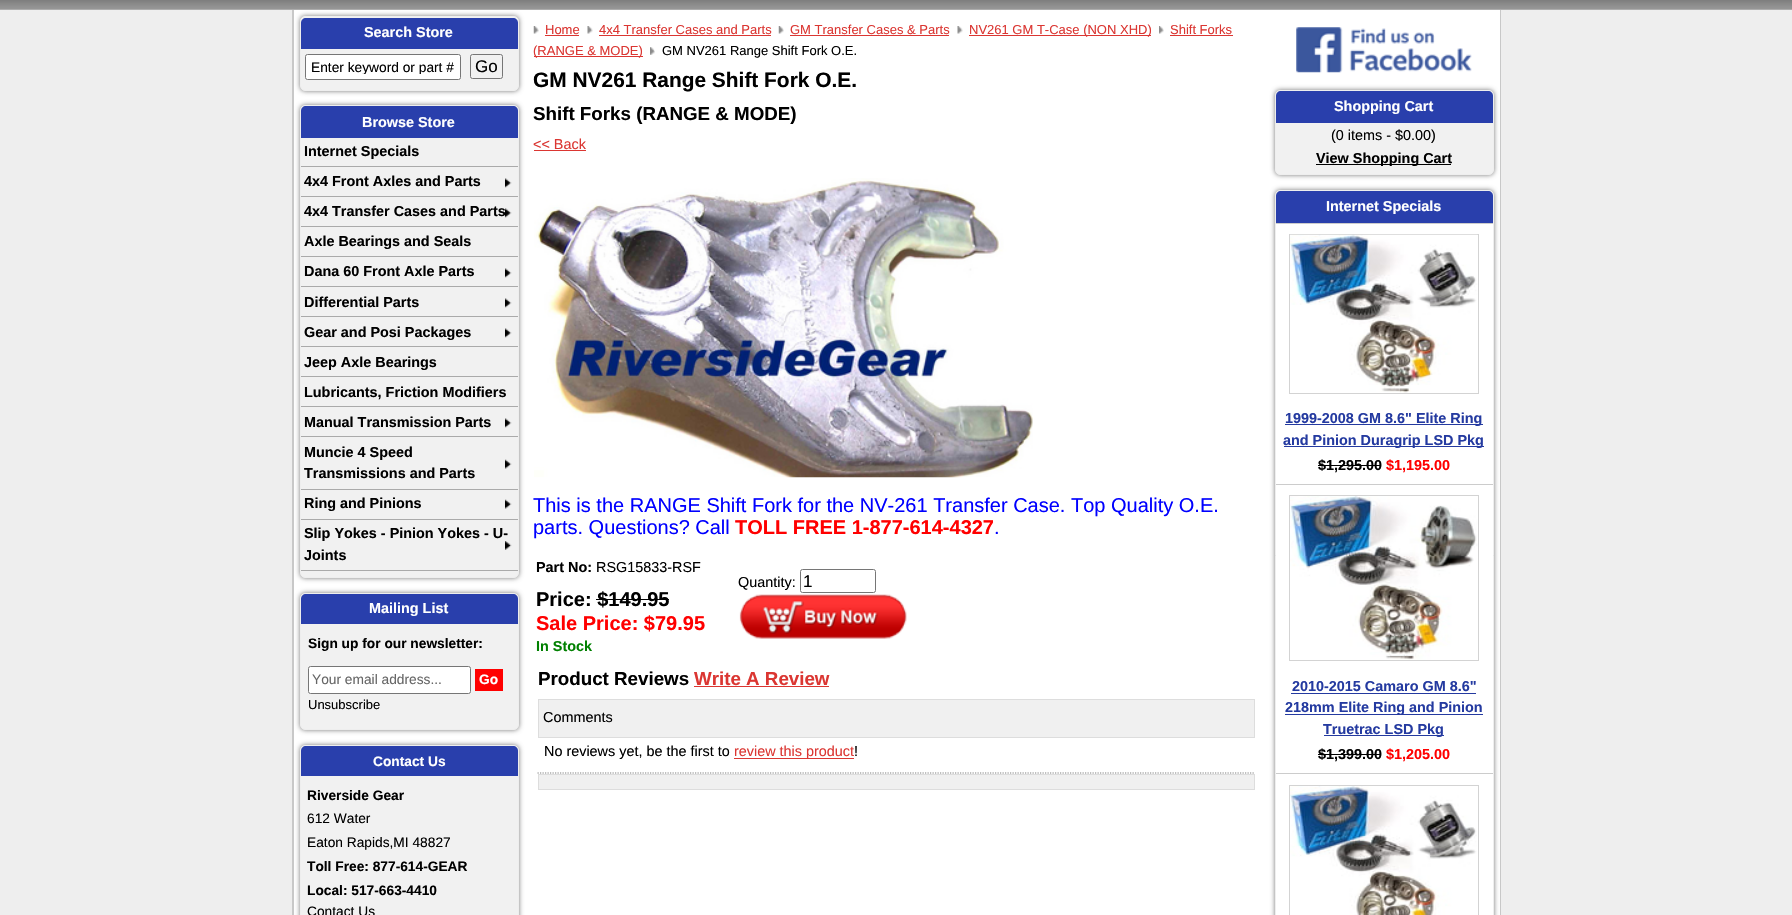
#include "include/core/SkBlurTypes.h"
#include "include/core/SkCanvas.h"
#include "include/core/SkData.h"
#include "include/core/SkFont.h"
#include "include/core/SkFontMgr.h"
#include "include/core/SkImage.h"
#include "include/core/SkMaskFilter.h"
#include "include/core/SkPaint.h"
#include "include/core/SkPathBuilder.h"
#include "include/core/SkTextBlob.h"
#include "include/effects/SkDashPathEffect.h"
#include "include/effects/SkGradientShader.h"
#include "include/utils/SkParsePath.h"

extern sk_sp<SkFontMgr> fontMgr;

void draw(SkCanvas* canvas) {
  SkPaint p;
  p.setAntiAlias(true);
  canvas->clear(SkColorSetRGB(238, 238, 238));
  canvas->drawImageRect(SkImages::DeferredFromEncodedData(SkData::MakeFromFileName("images/1.png")), SkRect::MakeLTRB(0, 0, 1792, 10), SkSamplingOptions());
  p.setColor(SK_ColorWHITE);
  canvas->drawRect(SkRect::MakeLTRB(294, 10, 1500, 915), p);
  p.setColor(SkColorSetRGB(200, 200, 200));
  canvas->drawPath(SkPathBuilder(SkPathFillType::kEvenOdd).moveTo(292, 10).lineTo(1501, 10).lineTo(1501, 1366).cubicTo(1501, 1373, 1496, 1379, 1489, 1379).lineTo(305, 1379).cubicTo(298, 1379, 292, 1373, 292, 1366).close().moveTo(294, 10).lineTo(1500, 10).lineTo(1500, 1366).cubicTo(1500, 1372, 1495, 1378, 1489, 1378).lineTo(305, 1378).cubicTo(299, 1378, 294, 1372, 294, 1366).close().detach(), p);
  p.setColor(SkColorSetRGB(119, 119, 119));
  p.setMaskFilter(SkMaskFilter::MakeBlur(kNormal_SkBlurStyle, 2.5f));
  canvas->drawRoundRect(SkRect::MakeLTRB(300, 16, 519, 91), 5, 5, p);
  p.setMaskFilter(nullptr);
  p.setColor(SkColorSetRGB(241, 241, 241));
  canvas->drawRoundRect(SkRect::MakeLTRB(300.5f, 16.5f, 518.5f, 90.5f), 4.5f, 4.5f, p);
  p.setStyle(SkPaint::kStroke_Style);
  p.setStrokeWidth(1);
  p.setColor(SkColorSetRGB(238, 238, 238));
  canvas->drawRoundRect(SkRect::MakeLTRB(300.5f, 16.5f, 518.5f, 90.5f), 4.5f, 4.5f, p);
  p.setStyle(SkPaint::kFill_Style);
  p.setColor(SkColorSetRGB(41, 63, 172));
  canvas->drawPath(SkPathBuilder().moveTo(306, 18).lineTo(513, 18).cubicTo(516, 18, 518, 20, 518, 23).lineTo(518, 49).lineTo(301, 49).lineTo(301, 23).cubicTo(301, 20, 303, 18, 306, 18).close().detach(), p);
  p.setColor(SK_ColorWHITE);
  canvas->drawRoundRect(SkRect::MakeLTRB(305.5f, 54.5f, 460.5f, 79.5f), 2, 2, p);
  p.setStyle(SkPaint::kStroke_Style);
  p.setColor(SkColorSetRGB(118, 118, 118));
  canvas->drawRoundRect(SkRect::MakeLTRB(305.5f, 54.5f, 460.5f, 79.5f), 2, 2, p);
  canvas->drawRoundRect(SkRect::MakeLTRB(470.5f, 54.5f, 502.5f, 78.5f), 2, 2, p);
  p.setStyle(SkPaint::kFill_Style);
  p.setColor(SkColorSetRGB(119, 119, 119));
  p.setMaskFilter(SkMaskFilter::MakeBlur(kNormal_SkBlurStyle, 2.5f));
  canvas->drawRoundRect(SkRect::MakeLTRB(300, 105, 519, 578), 5, 5, p);
  p.setMaskFilter(nullptr);
  p.setColor(SkColorSetRGB(241, 241, 241));
  canvas->drawRoundRect(SkRect::MakeLTRB(300.5f, 105.5f, 518.5f, 577.5f), 4.5f, 4.5f, p);
  p.setStyle(SkPaint::kStroke_Style);
  p.setColor(SkColorSetRGB(238, 238, 238));
  canvas->drawRoundRect(SkRect::MakeLTRB(300.5f, 105.5f, 518.5f, 577.5f), 4.5f, 4.5f, p);
  p.setStyle(SkPaint::kFill_Style);
  p.setColor(SkColorSetRGB(41, 63, 172));
  canvas->drawPath(SkPathBuilder().moveTo(306, 106).lineTo(513, 106).cubicTo(516, 106, 518, 108, 518, 111).lineTo(518, 138).lineTo(301, 138).lineTo(301, 111).cubicTo(301, 108, 303, 106, 306, 106).close().detach(), p);
  p.setColor(SkColorSetRGB(170, 170, 170));
  canvas->drawRect(SkRect::MakeLTRB(301, 166, 518, 167), p);
  canvas->drawImageRect(SkImages::DeferredFromEncodedData(SkData::MakeFromFileName("images/2.png")), SkRect::MakeLTRB(505, 178, 512, 188), SkSamplingOptions());
  canvas->drawRect(SkRect::MakeLTRB(301, 196, 518, 197), p);
  canvas->drawImageRect(SkImages::DeferredFromEncodedData(SkData::MakeFromFileName("images/2.png")), SkRect::MakeLTRB(505, 208, 512, 218), SkSamplingOptions());
  canvas->drawRect(SkRect::MakeLTRB(301, 226, 518, 227), p);
  canvas->drawRect(SkRect::MakeLTRB(301, 256, 518, 257), p);
  canvas->drawImageRect(SkImages::DeferredFromEncodedData(SkData::MakeFromFileName("images/2.png")), SkRect::MakeLTRB(505, 268, 512, 278), SkSamplingOptions());
  canvas->drawRect(SkRect::MakeLTRB(301, 286, 518, 287), p);
  canvas->drawImageRect(SkImages::DeferredFromEncodedData(SkData::MakeFromFileName("images/2.png")), SkRect::MakeLTRB(505, 298, 512, 308), SkSamplingOptions());
  canvas->drawRect(SkRect::MakeLTRB(301, 316, 518, 317), p);
  canvas->drawImageRect(SkImages::DeferredFromEncodedData(SkData::MakeFromFileName("images/2.png")), SkRect::MakeLTRB(505, 328, 512, 338), SkSamplingOptions());
  canvas->drawRect(SkRect::MakeLTRB(301, 346, 518, 347), p);
  canvas->drawRect(SkRect::MakeLTRB(301, 376, 518, 377), p);
  canvas->drawRect(SkRect::MakeLTRB(301, 406, 518, 407), p);
  canvas->drawImageRect(SkImages::DeferredFromEncodedData(SkData::MakeFromFileName("images/2.png")), SkRect::MakeLTRB(505, 418, 512, 428), SkSamplingOptions());
  canvas->drawRect(SkRect::MakeLTRB(301, 436, 518, 437), p);
  canvas->drawImageRect(SkImages::DeferredFromEncodedData(SkData::MakeFromFileName("images/3.png")), SkRect::MakeLTRB(505, 459, 512, 469), SkSamplingOptions());
  canvas->drawRect(SkRect::MakeLTRB(301, 489, 518, 490), p);
  canvas->drawImageRect(SkImages::DeferredFromEncodedData(SkData::MakeFromFileName("images/3.png")), SkRect::MakeLTRB(505, 499, 512, 509), SkSamplingOptions());
  canvas->drawRect(SkRect::MakeLTRB(301, 519, 518, 520), p);
  canvas->drawImageRect(SkImages::DeferredFromEncodedData(SkData::MakeFromFileName("images/4.png")), SkRect::MakeLTRB(505, 541, 512, 550), SkSamplingOptions());
  canvas->drawRect(SkRect::MakeLTRB(301, 570, 518, 571), p);
  p.setColor(SkColorSetRGB(119, 119, 119));
  p.setMaskFilter(SkMaskFilter::MakeBlur(kNormal_SkBlurStyle, 2.5f));
  canvas->drawRoundRect(SkRect::MakeLTRB(300, 593, 519, 730), 5, 5, p);
  p.setMaskFilter(nullptr);
  p.setColor(SkColorSetRGB(241, 241, 241));
  canvas->drawRoundRect(SkRect::MakeLTRB(300.5f, 593.5f, 518.5f, 729.5f), 4.5f, 4.5f, p);
  p.setStyle(SkPaint::kStroke_Style);
  p.setColor(SkColorSetRGB(238, 238, 238));
  canvas->drawRoundRect(SkRect::MakeLTRB(300.5f, 593.5f, 518.5f, 729.5f), 4.5f, 4.5f, p);
  p.setStyle(SkPaint::kFill_Style);
  p.setColor(SkColorSetRGB(41, 63, 172));
  canvas->drawPath(SkPathBuilder().moveTo(306, 594).lineTo(513, 594).cubicTo(516, 594, 518, 596, 518, 599).lineTo(518, 624).lineTo(301, 624).lineTo(301, 599).cubicTo(301, 596, 303, 594, 306, 594).close().detach(), p);
  p.setColor(SK_ColorWHITE);
  canvas->drawRoundRect(SkRect::MakeLTRB(308.5f, 666.5f, 470.5f, 693.5f), 2, 2, p);
  p.setStyle(SkPaint::kStroke_Style);
  p.setColor(SkColorSetRGB(118, 118, 118));
  canvas->drawRoundRect(SkRect::MakeLTRB(308.5f, 666.5f, 470.5f, 693.5f), 2, 2, p);
  p.setStyle(SkPaint::kFill_Style);
  p.setColor(SkColorSetRGB(255, 0, 0));
  canvas->drawRect(SkRect::MakeLTRB(475, 669, 503, 691), p);
  p.setColor(SkColorSetRGB(119, 119, 119));
  p.setMaskFilter(SkMaskFilter::MakeBlur(kNormal_SkBlurStyle, 2.5f));
  canvas->drawRoundRect(SkRect::MakeLTRB(300, 745, 519, 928), 5, 5, p);
  p.setMaskFilter(nullptr);
  p.setColor(SkColorSetRGB(241, 241, 241));
  canvas->drawRoundRect(SkRect::MakeLTRB(300.5f, 745.5f, 518.5f, 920.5f), 4.5f, 4.5f, p);
  p.setStyle(SkPaint::kStroke_Style);
  p.setColor(SkColorSetRGB(238, 238, 238));
  canvas->drawRoundRect(SkRect::MakeLTRB(300.5f, 745.5f, 518.5f, 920.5f), 4.5f, 4.5f, p);
  p.setStyle(SkPaint::kFill_Style);
  p.setColor(SkColorSetRGB(41, 63, 172));
  canvas->drawPath(SkPathBuilder().moveTo(306, 746).lineTo(513, 746).cubicTo(516, 746, 518, 748, 518, 751).lineTo(518, 776).lineTo(301, 776).lineTo(301, 751).cubicTo(301, 748, 303, 746, 306, 746).close().detach(), p);
  canvas->drawImageRect(SkImages::DeferredFromEncodedData(SkData::MakeFromFileName("images/5.png")), SkRect::MakeLTRB(533, 26, 539, 34), SkSamplingOptions());
  p.setColor(SkColorSetRGB(219, 54, 50));
  canvas->drawRect(SkRect::MakeLTRB(545, 35, 579, 36), p);
  canvas->drawImageRect(SkImages::DeferredFromEncodedData(SkData::MakeFromFileName("images/6.png")), SkRect::MakeLTRB(587, 26, 593, 34), SkSamplingOptions());
  canvas->drawRect(SkRect::MakeLTRB(599, 35, 771, 36), p);
  canvas->drawImageRect(SkImages::DeferredFromEncodedData(SkData::MakeFromFileName("images/7.png")), SkRect::MakeLTRB(778, 26, 784, 34), SkSamplingOptions());
  canvas->drawRect(SkRect::MakeLTRB(790, 35, 949, 36), p);
  canvas->drawImageRect(SkImages::DeferredFromEncodedData(SkData::MakeFromFileName("images/6.png")), SkRect::MakeLTRB(957, 26, 963, 34), SkSamplingOptions());
  canvas->drawRect(SkRect::MakeLTRB(969, 35, 1151, 36), p);
  canvas->drawImageRect(SkImages::DeferredFromEncodedData(SkData::MakeFromFileName("images/8.png")), SkRect::MakeLTRB(1159, 26, 1164, 34), SkSamplingOptions());
  canvas->drawRect(SkRect::MakeLTRB(1170, 35, 1233, 36), p);
  canvas->drawRect(SkRect::MakeLTRB(534, 56, 643, 57), p);
  canvas->drawImageRect(SkImages::DeferredFromEncodedData(SkData::MakeFromFileName("images/9.png")), SkRect::MakeLTRB(650, 47, 655, 55), SkSamplingOptions());
  canvas->drawRect(SkRect::MakeLTRB(534, 150, 586, 151), p);
  canvas->drawImageRect(SkImages::DeferredFromEncodedData(SkData::MakeFromFileName("images/10.png")), SkRect::MakeLTRB(534, 178, 1033, 478), SkSamplingOptions());
  p.setColor(SK_ColorBLACK);
  canvas->drawRect(SkRect::MakeLTRB(596, 599, 669, 600), p);
  p.setStyle(SkPaint::kStroke_Style);
  p.setColor(SkColorSetRGB(118, 118, 118));
  canvas->drawRoundRect(SkRect::MakeLTRB(800.5f, 569.5f, 875.5f, 592.5f), 2, 2, p);
  canvas->drawImageRect(SkImages::DeferredFromEncodedData(SkData::MakeFromFileName("images/11.png")), SkRect::MakeLTRB(739, 594, 907, 639), SkSamplingOptions());
  p.setStyle(SkPaint::kFill_Style);
  p.setColor(SkColorSetRGB(219, 54, 50));
  canvas->drawRect(SkRect::MakeLTRB(694, 686, 829, 687), p);
  p.setColor(SkColorSetRGB(240, 240, 240));
  canvas->drawRect(SkRect::MakeLTRB(538.5f, 699.5f, 1254.5f, 737.5f), p);
  p.setStyle(SkPaint::kStroke_Style);
  p.setColor(SkColorSetRGB(221, 221, 221));
  canvas->drawRect(SkRect::MakeLTRB(538.5f, 699.5f, 1254.5f, 737.5f), p);
  p.setStrokeWidth(1.2f);
  p.setColor(SkColorSetRGB(128, 128, 128));
  p.setPathEffect(SkDashPathEffect::Make({{1.25f, 1.25f}}, 0));
  canvas->drawPath(SkPathBuilder().moveTo(537.5f, 773).lineTo(1255, 773).detach(), p);
  p.setPathEffect(nullptr);
  p.setStyle(SkPaint::kFill_Style);
  p.setColor(SkColorSetRGB(219, 54, 50));
  canvas->drawRect(SkRect::MakeLTRB(734, 758, 854, 759), p);
  p.setColor(SkColorSetRGB(240, 240, 240));
  canvas->drawRect(SkRect::MakeLTRB(538.5f, 774.5f, 1254.5f, 789.5f), p);
  p.setStyle(SkPaint::kStroke_Style);
  p.setStrokeWidth(1);
  p.setColor(SkColorSetRGB(221, 221, 221));
  canvas->drawRect(SkRect::MakeLTRB(538.5f, 774.5f, 1254.5f, 789.5f), p);
  canvas->drawImageRect(SkImages::DeferredFromEncodedData(SkData::MakeFromFileName("images/12.png")), SkRect::MakeLTRB(1296, 27, 1472, 73), SkSamplingOptions());
  p.setStyle(SkPaint::kFill_Style);
  p.setColor(SkColorSetRGB(119, 119, 119));
  p.setMaskFilter(SkMaskFilter::MakeBlur(kNormal_SkBlurStyle, 2.5f));
  canvas->drawRoundRect(SkRect::MakeLTRB(1275, 90, 1494, 175), 5, 5, p);
  p.setMaskFilter(nullptr);
  p.setColor(SkColorSetRGB(241, 241, 241));
  canvas->drawRoundRect(SkRect::MakeLTRB(1275.5f, 90.5f, 1493.5f, 174.5f), 4.5f, 4.5f, p);
  p.setStyle(SkPaint::kStroke_Style);
  p.setColor(SkColorSetRGB(238, 238, 238));
  canvas->drawRoundRect(SkRect::MakeLTRB(1275.5f, 90.5f, 1493.5f, 174.5f), 4.5f, 4.5f, p);
  p.setStyle(SkPaint::kFill_Style);
  p.setColor(SkColorSetRGB(41, 63, 172));
  canvas->drawPath(SkPathBuilder().moveTo(1281, 91).lineTo(1488, 91).cubicTo(1491, 91, 1493, 93, 1493, 96).lineTo(1493, 123).lineTo(1276, 123).lineTo(1276, 96).cubicTo(1276, 93, 1278, 91, 1281, 91).close().detach(), p);
  p.setColor(SK_ColorBLACK);
  canvas->drawRect(SkRect::MakeLTRB(1316, 164, 1451, 165), p);
  p.setColor(SkColorSetRGB(119, 119, 119));
  p.setMaskFilter(SkMaskFilter::MakeBlur(kNormal_SkBlurStyle, 2.5f));
  canvas->drawRoundRect(SkRect::MakeLTRB(1275, 190, 1494, 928), 5, 5, p);
  p.setMaskFilter(nullptr);
  p.setColor(SkColorSetRGB(241, 241, 241));
  canvas->drawRoundRect(SkRect::MakeLTRB(1275.5f, 190.5f, 1493.5f, 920.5f), 4.5f, 4.5f, p);
  p.setStyle(SkPaint::kStroke_Style);
  p.setColor(SkColorSetRGB(238, 238, 238));
  canvas->drawRoundRect(SkRect::MakeLTRB(1275.5f, 190.5f, 1493.5f, 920.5f), 4.5f, 4.5f, p);
  p.setStyle(SkPaint::kFill_Style);
  p.setColor(SkColorSetRGB(41, 63, 172));
  canvas->drawPath(SkPathBuilder().moveTo(1281, 191).lineTo(1488, 191).cubicTo(1491, 191, 1493, 193, 1493, 196).lineTo(1493, 223).lineTo(1276, 223).lineTo(1276, 196).cubicTo(1276, 193, 1278, 191, 1281, 191).close().detach(), p);
  p.setColor(SK_ColorWHITE);
  canvas->drawRect(SkRect::MakeLTRB(1276, 224, 1493, 484), p);
  p.setColor(SkColorSetRGB(204, 204, 204));
  canvas->drawRect(SkRect::MakeLTRB(1276, 223, 1493, 224), p);
  p.setStyle(SkPaint::kStroke_Style);
  p.setColor(SkColorSetRGB(211, 211, 211));
  canvas->drawRect(SkRect::MakeLTRB(1289.5f, 234.5f, 1478.5f, 393.5f), p);
  canvas->drawImageRect(SkImages::DeferredFromEncodedData(SkData::MakeFromFileName("images/13.png")), SkRect::MakeLTRB(1290, 234, 1478, 393), SkSamplingOptions());
  p.setStyle(SkPaint::kFill_Style);
  p.setColor(SkColorSetRGB(36, 58, 160));
  canvas->drawRect(SkRect::MakeLTRB(1285, 424, 1483, 425), p);
  canvas->drawRect(SkRect::MakeLTRB(1284, 446, 1484, 447), p);
  p.setColor(SK_ColorBLACK);
  canvas->drawRect(SkRect::MakeLTRB(1318, 465, 1381, 466), p);
  p.setColor(SK_ColorWHITE);
  canvas->drawRect(SkRect::MakeLTRB(1276, 485, 1493, 773), p);
  p.setColor(SkColorSetRGB(204, 204, 204));
  canvas->drawRect(SkRect::MakeLTRB(1276, 484, 1493, 485), p);
  p.setStyle(SkPaint::kStroke_Style);
  p.setColor(SkColorSetRGB(211, 211, 211));
  canvas->drawRect(SkRect::MakeLTRB(1289.5f, 495.5f, 1478.5f, 660.5f), p);
  canvas->drawImageRect(SkImages::DeferredFromEncodedData(SkData::MakeFromFileName("images/14.png")), SkRect::MakeLTRB(1290, 496, 1478, 660), SkSamplingOptions());
  p.setStyle(SkPaint::kFill_Style);
  p.setColor(SkColorSetRGB(36, 58, 160));
  canvas->drawRect(SkRect::MakeLTRB(1291, 693, 1476, 694), p);
  canvas->drawRect(SkRect::MakeLTRB(1285, 714, 1483, 715), p);
  canvas->drawRect(SkRect::MakeLTRB(1324, 735, 1444, 736), p);
  p.setColor(SK_ColorBLACK);
  canvas->drawRect(SkRect::MakeLTRB(1318, 754, 1381, 755), p);
  p.setColor(SK_ColorWHITE);
  canvas->drawRect(SkRect::MakeLTRB(1276, 774, 1493, 915), p);
  p.setColor(SkColorSetRGB(204, 204, 204));
  canvas->drawRect(SkRect::MakeLTRB(1276, 773, 1493, 774), p);
  p.setStyle(SkPaint::kStroke_Style);
  p.setColor(SkColorSetRGB(211, 211, 211));
  canvas->drawRect(SkRect::MakeLTRB(1289.5f, 785.5f, 1478.5f, 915.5f), p);
  canvas->drawImageRect(SkImages::DeferredFromEncodedData(SkData::MakeFromFileName("images/15.png")), SkRect::MakeLTRB(1290, 786, 1477, 915), SkSamplingOptions());
  SkFont font1(fontMgr->matchFamilyStyle("Liberation Sans", SkFontStyle::Bold()), 14.4f);
  font1.setSubpixel(true);
  p.setStyle(SkPaint::kFill_Style);
  p.setColor(SK_ColorWHITE);
  canvas->drawString("Search Store", 364, 37, font1, p);
  canvas->save();
  canvas->clipRect(SkRect::MakeLTRB(311, 59, 455, 74));
  SkFont font2(fontMgr->matchFamilyStyle("Liberation Sans", SkFontStyle::Normal()), 13.75f);
  font2.setSubpixel(true);
  p.setColor(SK_ColorBLACK);
  canvas->drawString("Enter keyword or part #", 311, 72, font2, p);
  canvas->restore();
  SkFont font3(fontMgr->matchFamilyStyle("Liberation Sans", SkFontStyle::Normal()), 17);
  font3.setSubpixel(true);
  canvas->drawString("Go", 475, 72, font3, p);
  p.setColor(SK_ColorWHITE);
  canvas->drawString("Browse Store", 362, 127, font1, p);
  p.setColor(SK_ColorBLACK);
  canvas->drawString("Internet Specials", 304, 156, font1, p);
  canvas->drawString("4x4 Front Axles and Parts", 304, 186, font1, p);
  canvas->drawString("4x4 Transfer Cases and Parts", 304, 216, font1, p);
  canvas->drawString("Axle Bearings and Seals", 304, 246, font1, p);
  canvas->drawString("Dana 60 Front Axle Parts", 304, 276, font1, p);
  canvas->drawString("Differential Parts", 304, 307, font1, p);
  canvas->drawString("Gear and Posi Packages", 304, 337, font1, p);
  canvas->drawString("Jeep Axle Bearings", 304, 367, font1, p);
  canvas->drawString("Lubricants, Friction Modifiers", 304, 397, font1, p);
  canvas->drawString("Manual Transmission Parts", 304, 427, font1, p);
  canvas->drawString("Muncie 4 Speed", 304, 457, font1, p);
  canvas->drawString("Transmissions and Parts", 304, 478, font1, p);
  canvas->drawString("Ring and Pinions", 304, 508, font1, p);
  canvas->drawString("Slip Yokes - Pinion Yokes - U-", 304, 538, font1, p);
  canvas->drawString("Joints", 304, 560, font1, p);
  p.setColor(SK_ColorWHITE);
  canvas->drawString("Mailing List", 369, 613, font1, p);
  SkFont font4(fontMgr->matchFamilyStyle("Liberation Sans", SkFontStyle::Bold()), 13.75f);
  font4.setSubpixel(true);
  p.setColor(SK_ColorBLACK);
  canvas->drawString("Sign up for our newsletter:", 308, 648, font4, p);
  p.setColor(SkColorSetRGB(102, 102, 102));
  canvas->drawString("Your email address...", 312, 684, font2, p);
  p.setColor(SK_ColorWHITE);
  canvas->drawString("Go", 479, 684, font4, p);
  SkFont font5(fontMgr->matchFamilyStyle("Liberation Sans", SkFontStyle::Normal()), 13);
  font5.setSubpixel(true);
  p.setColor(SK_ColorBLACK);
  canvas->drawString("Unsubscribe", 308, 709, font5, p);
  p.setColor(SK_ColorWHITE);
  canvas->drawString("Contact Us", 373, 766, font4, p);
  p.setColor(SK_ColorBLACK);
  canvas->drawString("Riverside Gear", 307, 800, font4, p);
  canvas->drawString("612 Water", 307, 823, font2, p);
  canvas->drawString("Eaton Rapids,MI 48827", 307, 847, font2, p);
  canvas->drawString("Toll Free: 877-614-GEAR", 307, 871, font4, p);
  canvas->drawString("Local: 517-663-4410", 307, 895, font4, p);
  canvas->drawString("Contact Us", 307, 916, font2, p);
  p.setColor(SkColorSetRGB(219, 54, 50));
  canvas->drawString("Home", 545, 34, font5, p);
  canvas->drawString("4x4 Transfer Cases and Parts", 599, 34, font5, p);
  canvas->drawString("GM Transfer Cases & Parts", 790, 34, font5, p);
  canvas->drawString("NV261 GM T-Case (NON XHD)", 969, 34, font5, p);
  canvas->drawString("Shift Forks", 1170, 34, font5, p);
  canvas->drawString("(RANGE & MODE)", 533, 55, font5, p);
  p.setColor(SK_ColorBLACK);
  canvas->drawString("GM NV261 Range Shift Fork O.E.", 662, 55, font5, p);
  SkFont font6(fontMgr->matchFamilyStyle("Liberation Sans", SkFontStyle::Bold()), 20.9f);
  font6.setSubpixel(true);
  canvas->drawString("GM NV261 Range Shift Fork O.E.", 533, 87, font6, p);
  SkFont font7(fontMgr->matchFamilyStyle("Liberation Sans", SkFontStyle::Bold()), 18.75f);
  font7.setSubpixel(true);
  canvas->drawString("Shift Forks (RANGE & MODE)", 533, 120, font7, p);
  SkFont font8(fontMgr->matchFamilyStyle("Liberation Sans", SkFontStyle::Normal()), 14.4f);
  font8.setSubpixel(true);
  p.setColor(SkColorSetRGB(219, 54, 50));
  canvas->drawString("<< Back", 533, 149, font8, p);
  SkFont font9(fontMgr->matchFamilyStyle("Liberation Sans", SkFontStyle::Normal()), 20);
  font9.setSubpixel(true);
  p.setColor(SkColorSetRGB(0, 0, 255));
  canvas->drawString("This is the RANGE Shift Fork for the NV-261 Transfer Case. Top Quality O.E.", 533, 512, font9, p);
  canvas->drawString("parts. Questions? Call", 533, 534, font9, p);
  SkFont font10(fontMgr->matchFamilyStyle("Liberation Sans", SkFontStyle::Bold()), 20);
  font10.setSubpixel(true);
  p.setColor(SkColorSetRGB(255, 0, 0));
  canvas->drawString("TOLL FREE 1-877-614-4327", 735, 534, font10, p);
  p.setColor(SkColorSetRGB(0, 0, 255));
  canvas->drawString(".", 994, 534, font9, p);
  p.setColor(SK_ColorBLACK);
  canvas->drawString("Part No:", 536, 572, font1, p);
  canvas->drawString("RSG15833-RSF", 596, 572, font8, p);
  canvas->drawString("Price: $149.95", 536, 606, font10, p);
  p.setColor(SkColorSetRGB(255, 0, 0));
  canvas->drawString("Sale Price: $79.95", 536, 630, font10, p);
  p.setColor(SkColorSetRGB(0, 128, 0));
  canvas->drawString("In Stock", 536, 651, font1, p);
  p.setColor(SK_ColorBLACK);
  canvas->drawString("Quantity:", 738, 587, font8, p);
  canvas->drawString("1", 803, 587, font3, p);
  canvas->drawString("Product Reviews", 538, 685, font7, p);
  p.setColor(SkColorSetRGB(219, 54, 50));
  canvas->drawString("Write A Review", 694, 685, font7, p);
  p.setColor(SK_ColorBLACK);
  canvas->drawString("Comments", 543, 722, font8, p);
  canvas->drawString("No reviews yet, be the first to", 544, 756, font8, p);
  p.setColor(SkColorSetRGB(219, 54, 50));
  canvas->drawString("review this product", 734, 756, font8, p);
  p.setColor(SK_ColorBLACK);
  canvas->drawString("!", 854, 756, font8, p);
  p.setColor(SK_ColorWHITE);
  canvas->drawString("Shopping Cart", 1334, 111, font1, p);
  p.setColor(SK_ColorBLACK);
  canvas->drawString("(0 items - $0.00)", 1331, 140, font8, p);
  canvas->drawString("View Shopping Cart", 1316, 163, font1, p);
  p.setColor(SK_ColorWHITE);
  canvas->drawString("Internet Specials", 1326, 211, font1, p);
  p.setColor(SkColorSetRGB(36, 58, 160));
  canvas->drawString("1999-2008 GM 8.6\" Elite Ring", 1285, 423, font1, p);
  canvas->drawString("and Pinion Duragrip LSD Pkg", 1283, 445, font1, p);
  p.setColor(SK_ColorBLACK);
  canvas->drawString("$1,295.00", 1318, 470, font1, p);
  p.setColor(SkColorSetRGB(255, 0, 0));
  canvas->drawString("$1,195.00", 1386, 470, font1, p);
  p.setColor(SkColorSetRGB(36, 58, 160));
  canvas->drawString("2010-2015 Camaro GM 8.6\"", 1292, 691, font1, p);
  canvas->drawString("218mm Elite Ring and Pinion", 1285, 712, font1, p);
  canvas->drawString("Truetrac LSD Pkg", 1323, 734, font1, p);
  p.setColor(SK_ColorBLACK);
  canvas->drawString("$1,399.00", 1318, 759, font1, p);
  p.setColor(SkColorSetRGB(255, 0, 0));
  canvas->drawString("$1,205.00", 1386, 759, font1, p);
}
